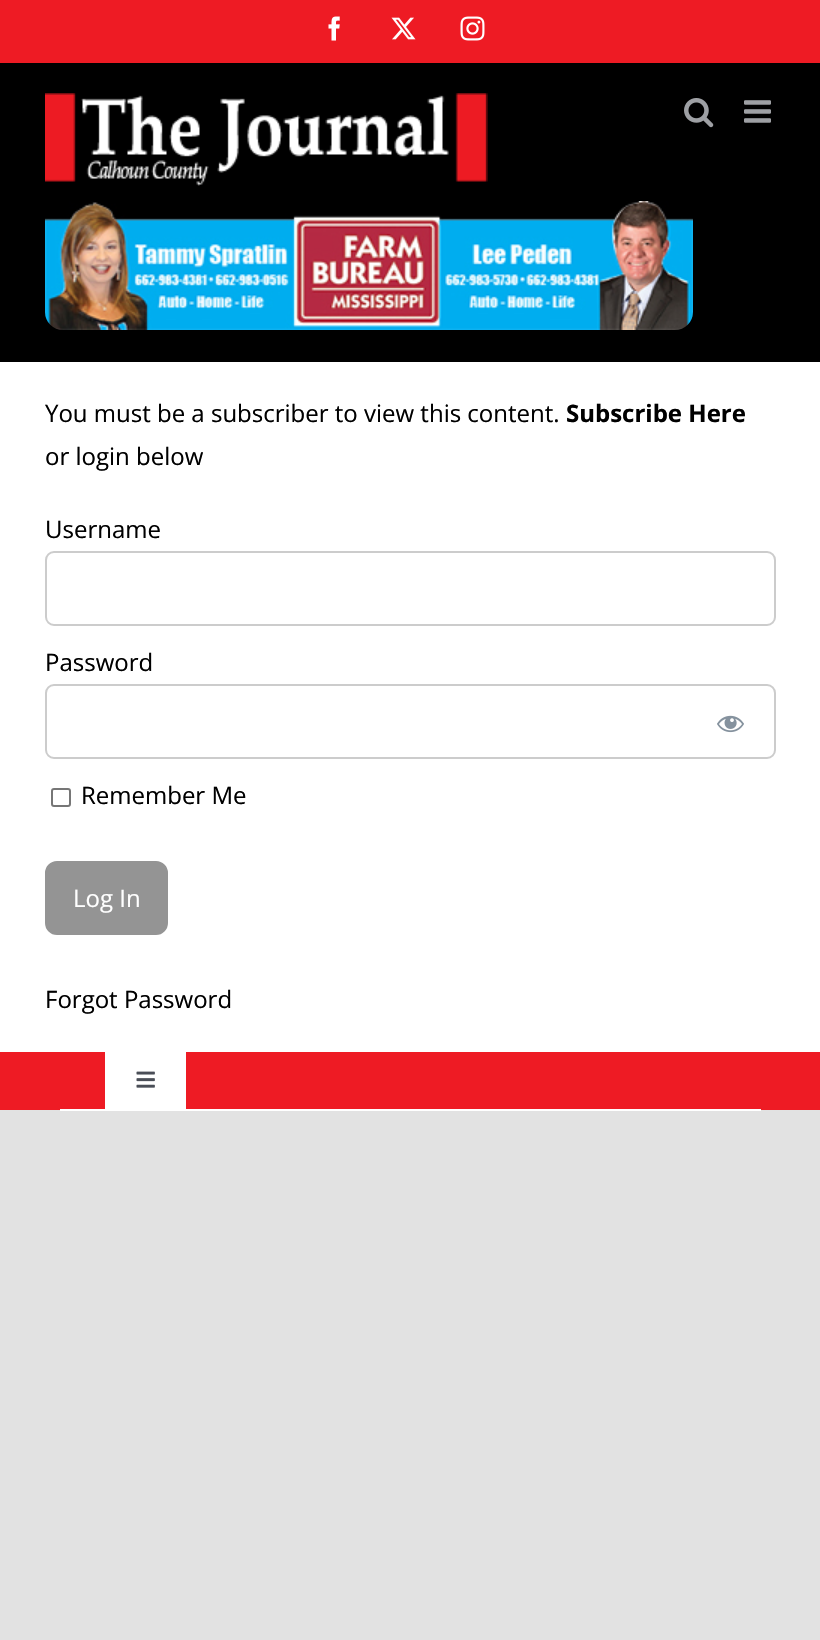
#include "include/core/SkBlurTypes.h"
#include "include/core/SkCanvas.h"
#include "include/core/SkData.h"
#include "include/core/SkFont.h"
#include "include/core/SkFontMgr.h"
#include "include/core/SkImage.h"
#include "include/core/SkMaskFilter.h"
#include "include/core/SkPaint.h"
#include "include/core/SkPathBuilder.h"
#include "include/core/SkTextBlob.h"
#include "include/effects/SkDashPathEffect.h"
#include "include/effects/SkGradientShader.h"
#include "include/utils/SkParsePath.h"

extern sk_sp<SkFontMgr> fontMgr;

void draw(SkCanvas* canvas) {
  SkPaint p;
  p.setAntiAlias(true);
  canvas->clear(SkColorSetRGB(226, 226, 226));
  p.setColor(SK_ColorWHITE);
  canvas->drawRect(SkRect::MakeLTRB(0, 362, 820, 1052), p);
  p.setColor(SkColorSetRGB(238, 27, 36));
  canvas->drawRect(SkRect::MakeLTRB(0, 0, 820, 63), p);
  canvas->drawImageRect(SkImages::DeferredFromEncodedData(SkData::MakeFromFileName("images/1.png")), SkRect::MakeLTRB(328, 16, 340, 41), SkSamplingOptions());
  canvas->drawImageRect(SkImages::DeferredFromEncodedData(SkData::MakeFromFileName("images/2.png")), SkRect::MakeLTRB(391, 17, 416, 40), SkSamplingOptions());
  canvas->drawImageRect(SkImages::DeferredFromEncodedData(SkData::MakeFromFileName("images/3.png")), SkRect::MakeLTRB(460, 16, 485, 41), SkSamplingOptions());
  p.setColor(SK_ColorBLACK);
  canvas->drawRect(SkRect::MakeLTRB(0, 63, 820, 362), p);
  canvas->drawImageRect(SkImages::DeferredFromEncodedData(SkData::MakeFromFileName("images/4.png")), SkRect::MakeLTRB(45, 93, 488, 186), SkSamplingOptions());
  canvas->drawImageRect(SkImages::DeferredFromEncodedData(SkData::MakeFromFileName("images/5.png")), SkRect::MakeLTRB(45, 201, 693, 330), SkSamplingOptions());
  canvas->drawImageRect(SkImages::DeferredFromEncodedData(SkData::MakeFromFileName("images/6.png")), SkRect::MakeLTRB(684, 98, 714, 128), SkSamplingOptions());
  canvas->drawImageRect(SkImages::DeferredFromEncodedData(SkData::MakeFromFileName("images/7.png")), SkRect::MakeLTRB(744, 100, 771, 123), SkSamplingOptions());
  p.setStyle(SkPaint::kStroke_Style);
  p.setStrokeWidth(2);
  p.setColor(SkColorSetRGB(204, 204, 204));
  canvas->drawRoundRect(SkRect::MakeLTRB(46, 552, 775, 625), 8, 8, p);
  canvas->drawRoundRect(SkRect::MakeLTRB(46, 685, 775, 758), 8, 8, p);
  canvas->drawImageRect(SkImages::DeferredFromEncodedData(SkData::MakeFromFileName("images/8.png")), SkRect::MakeLTRB(717, 715, 744, 733), SkSamplingOptions());
  p.setColor(SkColorSetRGB(118, 118, 118));
  canvas->drawRoundRect(SkRect::MakeLTRB(52, 789, 70, 806), 2, 2, p);
  p.setStyle(SkPaint::kFill_Style);
  p.setColor(SkColorSetRGB(148, 148, 148));
  canvas->drawRoundRect(SkRect::MakeLTRB(46, 862, 167, 934), 11, 11, p);
  p.setStyle(SkPaint::kStroke_Style);
  canvas->drawRoundRect(SkRect::MakeLTRB(46, 862, 167, 934), 11, 11, p);
  p.setStyle(SkPaint::kFill_Style);
  p.setColor(SkColorSetRGB(238, 27, 36));
  canvas->drawRect(SkRect::MakeLTRB(0, 1052, 820, 1110), p);
  p.setColor(SK_ColorWHITE);
  canvas->drawRect(SkRect::MakeLTRB(60, 1109, 761, 1111), p);
  canvas->drawRect(SkRect::MakeLTRB(105, 1052, 186, 1109), p);
  canvas->drawImageRect(SkImages::DeferredFromEncodedData(SkData::MakeFromFileName("images/9.png")), SkRect::MakeLTRB(136, 1071, 155, 1088), SkSamplingOptions());
  SkFont font1(fontMgr->matchFamilyStyle("Open Sans", SkFontStyle::Normal()), 24);
  font1.setSubpixel(true);
  p.setColor(SK_ColorBLACK);
  canvas->drawString("You must be a subscriber to view this content.", 45, 422, font1, p);
  SkFont font2(fontMgr->matchFamilyStyle("Open Sans", SkFontStyle::Bold()), 24);
  font2.setSubpixel(true);
  canvas->drawString("Subscribe Here", 566, 422, font2, p);
  canvas->drawString("or login below", 45, 465, font1, p);
  canvas->drawString("Username", 45, 538, font1, p);
  canvas->drawString("Password", 45, 671, font1, p);
  canvas->drawString("Remember Me", 81, 804, font1, p);
  p.setColor(SK_ColorWHITE);
  canvas->drawString("Log In", 73, 907, font1, p);
  p.setColor(SK_ColorBLACK);
  canvas->drawString("Forgot Password", 45, 1008, font1, p);
}
